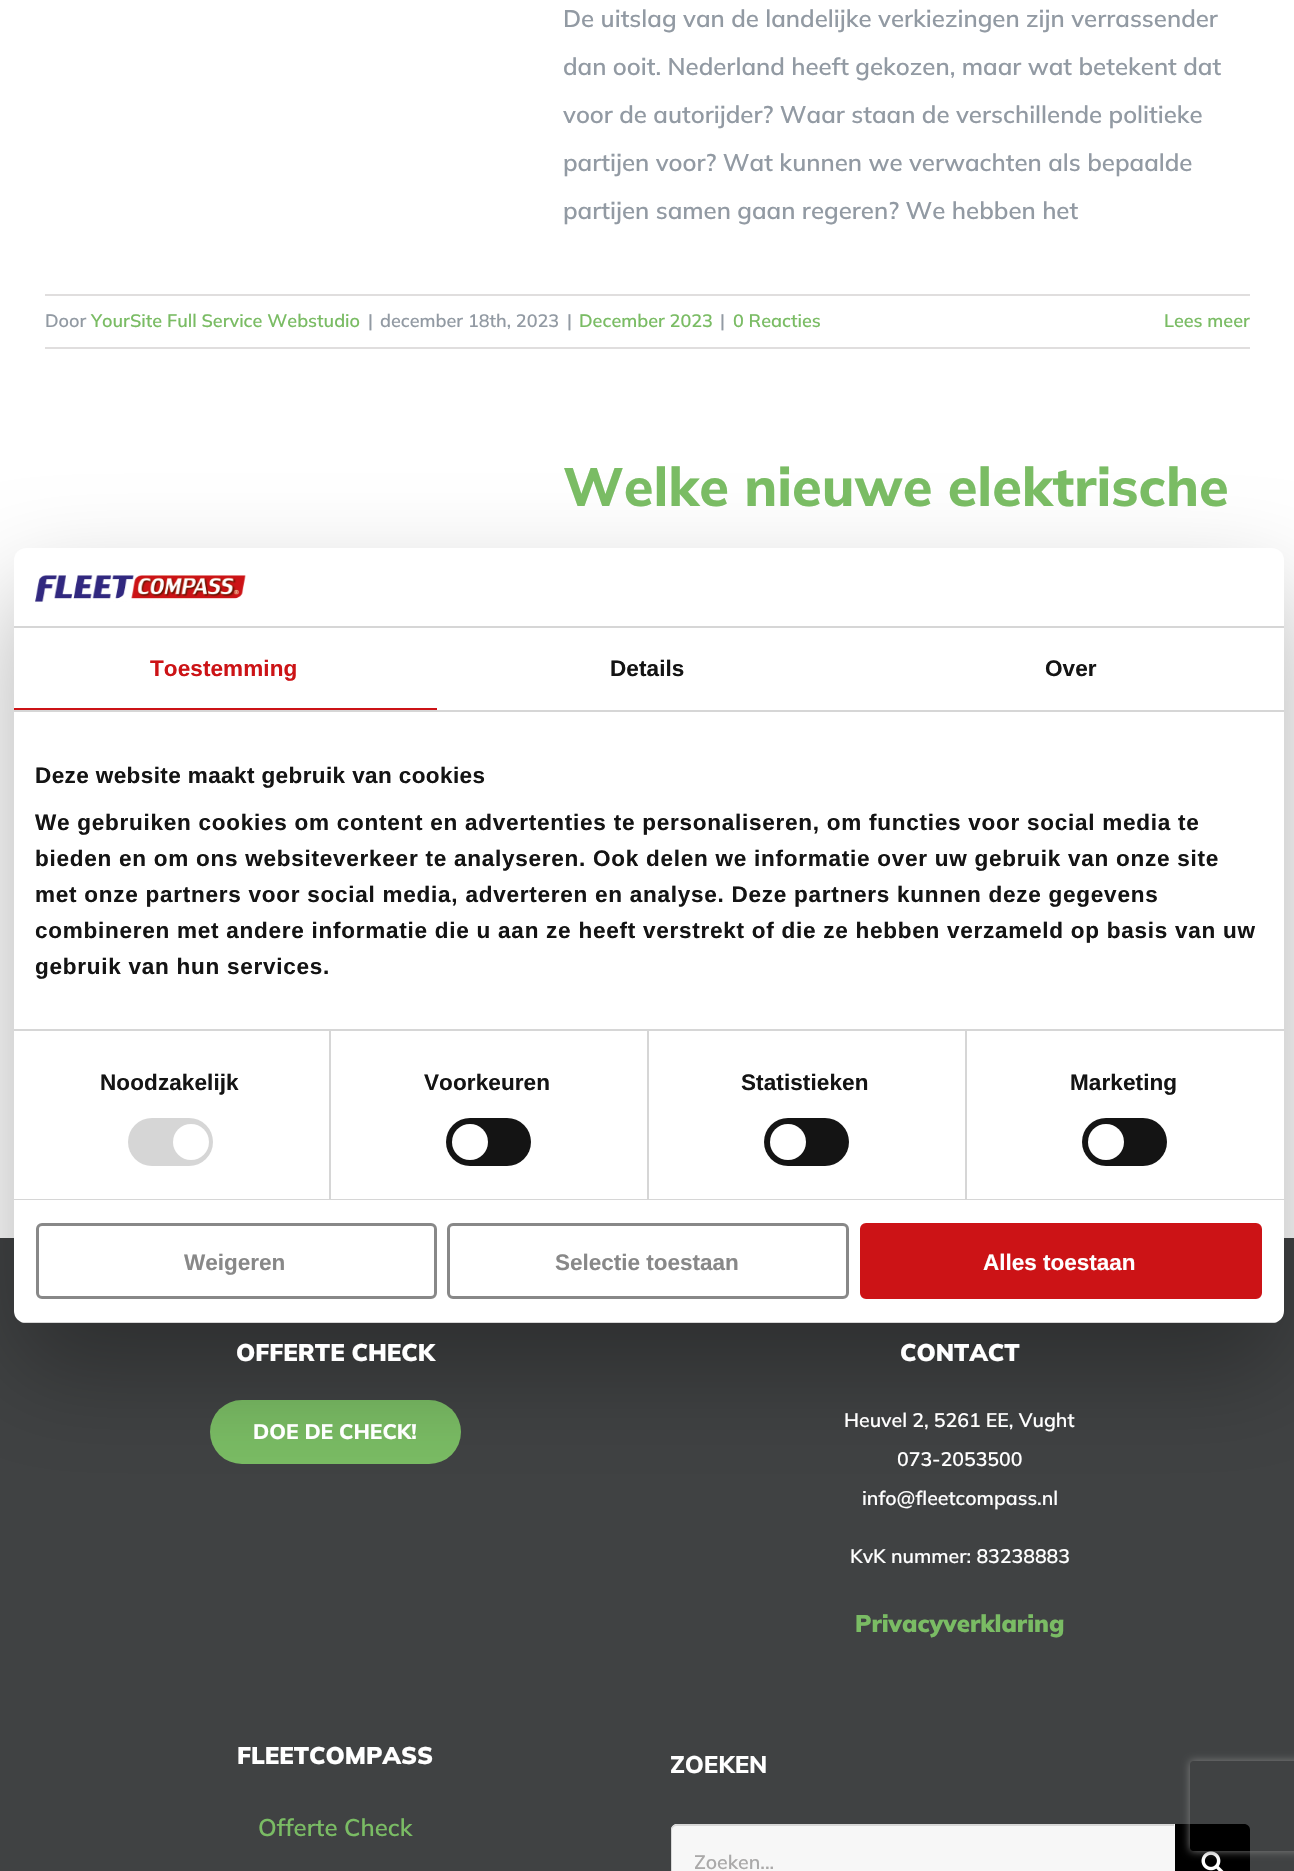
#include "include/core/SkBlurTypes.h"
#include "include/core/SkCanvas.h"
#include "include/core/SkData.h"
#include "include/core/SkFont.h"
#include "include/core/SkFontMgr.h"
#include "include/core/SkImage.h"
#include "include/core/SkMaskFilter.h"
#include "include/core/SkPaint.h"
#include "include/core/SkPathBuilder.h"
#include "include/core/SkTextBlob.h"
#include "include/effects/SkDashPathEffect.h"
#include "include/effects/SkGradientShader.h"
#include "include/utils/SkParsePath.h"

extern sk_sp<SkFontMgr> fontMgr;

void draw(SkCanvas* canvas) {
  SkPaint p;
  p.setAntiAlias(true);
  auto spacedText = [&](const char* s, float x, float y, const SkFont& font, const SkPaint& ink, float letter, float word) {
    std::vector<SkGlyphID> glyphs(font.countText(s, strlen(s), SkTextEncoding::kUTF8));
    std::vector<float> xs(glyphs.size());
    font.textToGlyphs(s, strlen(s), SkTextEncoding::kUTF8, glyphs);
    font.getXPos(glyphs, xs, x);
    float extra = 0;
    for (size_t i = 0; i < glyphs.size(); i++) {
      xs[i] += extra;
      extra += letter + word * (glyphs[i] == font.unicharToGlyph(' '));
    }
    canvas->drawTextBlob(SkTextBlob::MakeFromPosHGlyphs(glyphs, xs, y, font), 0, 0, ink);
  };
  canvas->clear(SK_ColorWHITE);
  p.setColor(SkColorSetRGB(224, 222, 222));
  canvas->drawRect(SkRect::MakeLTRB(45, 294, 1250, 296), p);
  canvas->drawRect(SkRect::MakeLTRB(45, 347, 1250, 349), p);
  p.setColor(SkColorSetRGB(64, 66, 67));
  canvas->drawRect(SkRect::MakeLTRB(0, 1238, 1294, 1871), p);
  p.setColor(SkColorSetRGB(122, 188, 100));
  canvas->drawRoundRect(SkRect::MakeLTRB(210, 1400, 461, 1464), 32, 32, p);
  p.setColor(SkColorSetRGB(247, 247, 247));
  canvas->drawPath(SkPathBuilder().moveTo(677, 1824).lineTo(1175, 1824).lineTo(1175, 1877).lineTo(677, 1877).cubicTo(673.5f, 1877, 671, 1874.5f, 671, 1871).lineTo(671, 1830).cubicTo(671, 1826.5f, 673.5f, 1824, 677, 1824).close().detach(), p);
  p.setColor(SkColorSetRGB(216, 216, 216));
  canvas->drawPath(SkPathBuilder().moveTo(676, 1826).lineTo(1174, 1826).lineTo(1174, 1824).lineTo(677, 1824).cubicTo(674, 1824, 671, 1827, 671, 1830).lineTo(671, 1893).cubicTo(671, 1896, 674, 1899, 677, 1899).lineTo(1174, 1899).lineTo(1174, 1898).lineTo(676, 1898).cubicTo(674, 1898, 672, 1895, 672, 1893).lineTo(672, 1830).cubicTo(672, 1828, 674, 1826, 676, 1826).close().detach(), p);
  p.setColor(SK_ColorBLACK);
  canvas->drawPath(SkPathBuilder().moveTo(1175, 1824).lineTo(1244, 1824).cubicTo(1247.5f, 1824, 1250, 1826.5f, 1250, 1830).lineTo(1250, 1871).cubicTo(1250, 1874.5f, 1247.5f, 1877, 1244, 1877).lineTo(1175, 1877).close().detach(), p);
  canvas->drawImageRect(SkImages::DeferredFromEncodedData(SkData::MakeFromFileName("images/1.png")), SkRect::MakeLTRB(1201, 1851, 1224, 1871), SkSamplingOptions());
  p.setColor(SkColorSetARGB(77, 0, 0, 0));
  p.setMaskFilter(SkMaskFilter::MakeBlur(kNormal_SkBlurStyle, 51));
  canvas->drawRoundRect(SkRect::MakeLTRB(14, 596, 1284, 1371), 12, 12, p);
  p.setMaskFilter(nullptr);
  p.setColor(SK_ColorWHITE);
  canvas->drawRoundRect(SkRect::MakeLTRB(14, 548, 1284, 1323), 12, 12, p);
  p.setColor(SkColorSetRGB(214, 214, 214));
  canvas->drawRect(SkRect::MakeLTRB(14, 626, 1284, 628), p);
  canvas->drawImageRect(SkImages::DeferredFromEncodedData(SkData::MakeFromFileName("images/2.png")), SkRect::MakeLTRB(35, 575, 246, 602), SkSamplingOptions());
  canvas->drawRect(SkRect::MakeLTRB(14, 710, 1284, 712), p);
  p.setColor(SkColorSetRGB(204, 19, 22));
  canvas->drawRect(SkRect::MakeLTRB(14, 708, 437, 710), p);
  p.setColor(SkColorSetRGB(214, 214, 214));
  canvas->drawRect(SkRect::MakeLTRB(14, 1029, 1284, 1031), p);
  canvas->drawRect(SkRect::MakeLTRB(14, 1199, 1284, 1200), p);
  canvas->drawRect(SkRect::MakeLTRB(329, 1031, 331, 1199), p);
  canvas->drawRoundRect(SkRect::MakeLTRB(128, 1118, 213, 1166), 24, 24, p);
  p.setColor(SK_ColorWHITE);
  canvas->drawCircle(191, 1142, 18, p);
  p.setColor(SkColorSetRGB(214, 214, 214));
  canvas->drawRect(SkRect::MakeLTRB(647, 1031, 649, 1199), p);
  p.setColor(SkColorSetRGB(20, 20, 20));
  canvas->drawRoundRect(SkRect::MakeLTRB(446, 1118, 531, 1166), 24, 24, p);
  p.setColor(SK_ColorWHITE);
  canvas->drawCircle(470, 1142, 18, p);
  p.setColor(SkColorSetRGB(214, 214, 214));
  canvas->drawRect(SkRect::MakeLTRB(965, 1031, 967, 1199), p);
  p.setColor(SkColorSetRGB(20, 20, 20));
  canvas->drawRoundRect(SkRect::MakeLTRB(764, 1118, 849, 1166), 24, 24, p);
  p.setColor(SK_ColorWHITE);
  canvas->drawCircle(788, 1142, 18, p);
  p.setColor(SkColorSetRGB(20, 20, 20));
  canvas->drawRoundRect(SkRect::MakeLTRB(1082, 1118, 1167, 1166), 24, 24, p);
  p.setColor(SK_ColorWHITE);
  canvas->drawCircle(1106, 1142, 18, p);
  canvas->save();
  canvas->clipPath(SkPathBuilder().moveTo(26, 548).lineTo(1272, 548).cubicTo(1278.5f, 548, 1284, 553.5f, 1284, 560).lineTo(1284, 1311).cubicTo(1284, 1317.5f, 1278.5f, 1323, 1272, 1323).lineTo(26, 1323).cubicTo(19.5f, 1323, 14, 1317.5f, 14, 1311).lineTo(14, 560).cubicTo(14, 553.5f, 19.5f, 548, 26, 548).close().detach(), true);
  p.setColor(SkColorSetRGB(214, 214, 214));
  canvas->drawRect(SkRect::MakeLTRB(14, 1322, 1284, 1323), p);
  canvas->restore();
  p.setStyle(SkPaint::kStroke_Style);
  p.setStrokeWidth(3);
  p.setColor(SkColorSetRGB(136, 136, 136));
  canvas->drawRoundRect(SkRect::MakeLTRB(37.5f, 1224.5f, 435.5f, 1297.5f), 4.5f, 4.5f, p);
  canvas->drawRoundRect(SkRect::MakeLTRB(448.5f, 1224.5f, 847.5f, 1297.5f), 4.5f, 4.5f, p);
  p.setStyle(SkPaint::kFill_Style);
  p.setColor(SkColorSetRGB(204, 19, 22));
  canvas->drawRoundRect(SkRect::MakeLTRB(861.5f, 1224.5f, 1260.5f, 1297.5f), 4.5f, 4.5f, p);
  p.setStyle(SkPaint::kStroke_Style);
  canvas->drawRoundRect(SkRect::MakeLTRB(861.5f, 1224.5f, 1260.5f, 1297.5f), 4.5f, 4.5f, p);
  canvas->save();
  canvas->clipPath(SkPathBuilder(SkPathFillType::kEvenOdd).moveTo(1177, 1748).lineTo(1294, 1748).lineTo(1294, 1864).lineTo(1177, 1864).close().moveTo(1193, 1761).lineTo(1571, 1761).cubicTo(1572.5f, 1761, 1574, 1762.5f, 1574, 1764).lineTo(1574, 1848).cubicTo(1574, 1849.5f, 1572.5f, 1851, 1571, 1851).lineTo(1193, 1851).cubicTo(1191.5f, 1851, 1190, 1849.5f, 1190, 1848).lineTo(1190, 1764).cubicTo(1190, 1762.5f, 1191.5f, 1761, 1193, 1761).close().detach(), true);
  p.setStyle(SkPaint::kFill_Style);
  p.setColor(SkColorSetRGB(128, 128, 128));
  p.setMaskFilter(SkMaskFilter::MakeBlur(kNormal_SkBlurStyle, 4));
  canvas->drawRoundRect(SkRect::MakeLTRB(1190, 1761, 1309, 1851), 3, 3, p);
  p.setMaskFilter(nullptr);
  canvas->restore();
  SkFont font1(fontMgr->matchFamilyStyle("Mulish", SkFontStyle(600, SkFontStyle::kNormal_Width, SkFontStyle::kUpright_Slant)), 24);
  font1.setSubpixel(true);
  p.setColor(SkColorSetRGB(146, 154, 163));
  canvas->drawString("De uitslag van de landelijke verkiezingen zijn verrassender", 563, 27, font1, p);
  canvas->drawString("dan ooit. Nederland heeft gekozen, maar wat betekent dat", 563, 75, font1, p);
  canvas->drawString("voor de autorijder? Waar staan de verschillende politieke", 563, 123, font1, p);
  canvas->drawString("partijen voor? Wat kunnen we verwachten als bepaalde", 563, 171, font1, p);
  canvas->drawString("partijen samen gaan regeren? We hebben het", 563, 219, font1, p);
  SkFont font2(fontMgr->matchFamilyStyle("Mulish", SkFontStyle(600, SkFontStyle::kNormal_Width, SkFontStyle::kUpright_Slant)), 18);
  font2.setSubpixel(true);
  canvas->drawString("Door", 45, 327, font2, p);
  p.setColor(SkColorSetRGB(122, 188, 100));
  canvas->drawString("YourSite Full Service Webstudio", 91, 327, font2, p);
  p.setColor(SkColorSetRGB(146, 154, 163));
  canvas->drawString("|", 368, 327, font2, p);
  canvas->drawString("december 18th, 2023", 380, 327, font2, p);
  canvas->drawString("|", 567, 327, font2, p);
  p.setColor(SkColorSetRGB(122, 188, 100));
  canvas->drawString("December 2023", 579, 327, font2, p);
  p.setColor(SkColorSetRGB(146, 154, 163));
  canvas->drawString("|", 720, 327, font2, p);
  p.setColor(SkColorSetRGB(122, 188, 100));
  canvas->drawString("0 Reacties", 733, 327, font2, p);
  canvas->drawString("Lees meer", 1164, 327, font2, p);
  SkFont font3(fontMgr->matchFamilyStyle("Mulish", SkFontStyle(800, SkFontStyle::kNormal_Width, SkFontStyle::kUpright_Slant)), 54);
  font3.setSubpixel(true);
  canvas->drawString("Welke nieuwe elektrische", 563, 506, font3, p);
  SkFont font4(fontMgr->matchFamilyStyle("Mulish", SkFontStyle(900, SkFontStyle::kNormal_Width, SkFontStyle::kUpright_Slant)), 24);
  font4.setSubpixel(true);
  p.setColor(SK_ColorWHITE);
  canvas->drawString("OFFERTE CHECK", 236, 1361, font4, p);
  SkFont font5(fontMgr->matchFamilyStyle("Mulish", SkFontStyle(800, SkFontStyle::kNormal_Width, SkFontStyle::kUpright_Slant)), 21);
  font5.setSubpixel(true);
  canvas->drawString("DOE DE CHECK!", 253, 1439, font5, p);
  canvas->drawString("CONTACT", 900, 1361, font4, p);
  SkFont font6(fontMgr->matchFamilyStyle("Mulish", SkFontStyle(600, SkFontStyle::kNormal_Width, SkFontStyle::kUpright_Slant)), 19.5f);
  font6.setSubpixel(true);
  canvas->drawString("Heuvel 2, 5261 EE, Vught", 844, 1427, font6, p);
  canvas->drawString("073-2053500", 897, 1466, font6, p);
  canvas->drawString("info@fleetcompass.nl", 862, 1505, font6, p);
  canvas->drawString("KvK nummer: 83238883", 850, 1563, font6, p);
  p.setColor(SkColorSetRGB(122, 188, 100));
  canvas->drawString("Privacyverklaring", 855, 1632, font4, p);
  p.setColor(SK_ColorWHITE);
  canvas->drawString("FLEETCOMPASS", 237, 1764, font4, p);
  p.setColor(SkColorSetRGB(122, 188, 100));
  canvas->drawString("Offerte Check", 258, 1836, font1, p);
  SkFont font7(fontMgr->matchFamilyStyle("Mulish", SkFontStyle(800, SkFontStyle::kNormal_Width, SkFontStyle::kUpright_Slant)), 24);
  font7.setSubpixel(true);
  p.setColor(SK_ColorWHITE);
  canvas->drawString("ZOEKEN", 670, 1773, font7, p);
  canvas->save();
  canvas->clipRect(SkRect::MakeLTRB(695, 1850, 1133, 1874));
  p.setColor(SkColorSetRGB(170, 169, 169));
  canvas->drawString("Zoeken...", 694, 1869, font6, p);
  canvas->restore();
  SkFont font8(fontMgr->matchFamilyStyle("Liberation Sans", SkFontStyle::Bold()), 22.5f);
  font8.setSubpixel(true);
  p.setColor(SkColorSetRGB(204, 19, 22));
  spacedText("Toestemming", 150, 676, font8, p, 0.1f, 0);
  p.setColor(SkColorSetRGB(20, 20, 20));
  spacedText("Details", 610, 676, font8, p, 0.1f, 0);
  spacedText("Over", 1045, 676, font8, p, 0.1f, 0);
  spacedText("Deze website maakt gebruik van cookies", 35, 783, font8, p, 0.4f, 0);
  spacedText("We gebruiken cookies om content en advertenties te personaliseren, om functies voor social media te", 35, 830, font8, p, 0.75f, 0);
  spacedText("bieden en om ons websiteverkeer te analyseren. Ook delen we informatie over uw gebruik van onze site", 35, 866, font8, p, 0.75f, 0);
  spacedText("met onze partners voor social media, adverteren en analyse. Deze partners kunnen deze gegevens", 35, 902, font8, p, 0.75f, 0);
  spacedText("combineren met andere informatie die u aan ze heeft verstrekt of die ze hebben verzameld op basis van uw", 35, 938, font8, p, 0.75f, 0);
  spacedText("gebruik van hun services.", 35, 974, font8, p, 0.75f, 0);
  spacedText("Noodzakelijk", 100, 1090, font8, p, 0.1f, 0);
  spacedText("Voorkeuren", 424, 1090, font8, p, 0.1f, 0);
  spacedText("Statistieken", 741, 1090, font8, p, 0.1f, 0);
  spacedText("Marketing", 1070, 1090, font8, p, 0.1f, 0);
  p.setColor(SkColorSetRGB(136, 136, 136));
  canvas->drawString("Weigeren", 184, 1270, font8, p);
  canvas->drawString("Selectie toestaan", 555, 1270, font8, p);
  p.setColor(SK_ColorWHITE);
  canvas->drawString("Alles toestaan", 983, 1270, font8, p);
}
